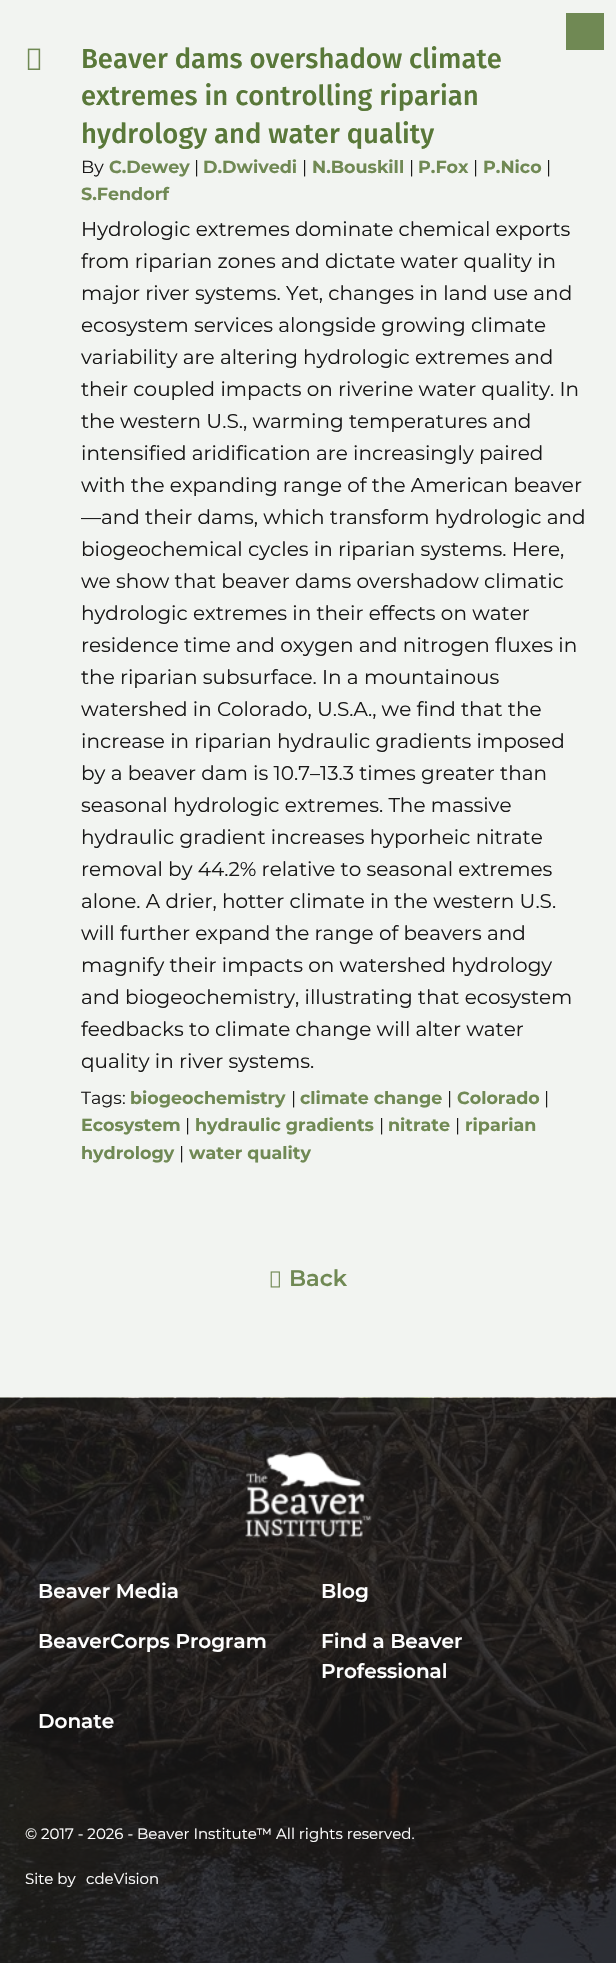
#include "include/core/SkBlurTypes.h"
#include "include/core/SkCanvas.h"
#include "include/core/SkData.h"
#include "include/core/SkFont.h"
#include "include/core/SkFontMgr.h"
#include "include/core/SkImage.h"
#include "include/core/SkMaskFilter.h"
#include "include/core/SkPaint.h"
#include "include/core/SkPathBuilder.h"
#include "include/core/SkTextBlob.h"
#include "include/effects/SkDashPathEffect.h"
#include "include/effects/SkGradientShader.h"
#include "include/utils/SkParsePath.h"

extern sk_sp<SkFontMgr> fontMgr;

void draw(SkCanvas* canvas) {
  SkPaint p;
  p.setAntiAlias(true);
  canvas->clear(SkColorSetRGB(242, 244, 241));
  p.setColor(SkColorSetRGB(112, 137, 84));
  canvas->drawRect(SkRect::MakeLTRB(566, 13, 604, 50), p);
  canvas->drawImageRect(SkImages::DeferredFromEncodedData(SkData::MakeFromFileName("images/1.png")), SkRect::MakeLTRB(27, 48, 41, 70), SkSamplingOptions());
  canvas->drawImageRect(SkImages::DeferredFromEncodedData(SkData::MakeFromFileName("images/2.png")), SkRect::MakeLTRB(270, 1271, 280, 1288), SkSamplingOptions());
  canvas->drawImageRect(SkImages::DeferredFromEncodedData(SkData::MakeFromFileName("images/3.png")), SkRect::MakeLTRB(0, 1397, 616, 1963), SkSamplingOptions());
  canvas->drawImageRect(SkImages::DeferredFromEncodedData(SkData::MakeFromFileName("images/4.png")), SkRect::MakeLTRB(245, 1451, 372, 1538), SkSamplingOptions());
  SkFont font1(fontMgr->matchFamilyStyle("Fira Sans", SkFontStyle(500, SkFontStyle::kNormal_Width, SkFontStyle::kUpright_Slant)), 27.5f);
  font1.setSubpixel(true);
  p.setColor(SkColorSetRGB(89, 120, 57));
  canvas->drawString("Beaver dams overshadow climate", 81, 68, font1, p);
  canvas->drawString("extremes in controlling riparian", 81, 105, font1, p);
  canvas->drawString("hydrology and water quality", 81, 143, font1, p);
  SkFont font2(fontMgr->matchFamilyStyle("Montserrat", SkFontStyle::Normal()), 17.5f);
  font2.setSubpixel(true);
  p.setColor(SkColorSetRGB(26, 25, 25));
  canvas->drawString("By", 81, 173, font2, p);
  SkFont font3(fontMgr->matchFamilyStyle("Montserrat", SkFontStyle::Bold()), 17.5f);
  font3.setSubpixel(true);
  p.setColor(SkColorSetRGB(112, 137, 84));
  canvas->drawString("C.Dewey", 109, 173, font3, p);
  p.setColor(SkColorSetRGB(26, 25, 25));
  canvas->drawString("|", 194, 173, font2, p);
  p.setColor(SkColorSetRGB(112, 137, 84));
  canvas->drawString("D.Dwivedi", 203, 173, font3, p);
  p.setColor(SkColorSetRGB(26, 25, 25));
  canvas->drawString("|", 302, 173, font2, p);
  p.setColor(SkColorSetRGB(112, 137, 84));
  canvas->drawString("N.Bouskill", 312, 173, font3, p);
  p.setColor(SkColorSetRGB(26, 25, 25));
  canvas->drawString("|", 409, 173, font2, p);
  p.setColor(SkColorSetRGB(112, 137, 84));
  canvas->drawString("P.Fox", 418, 173, font3, p);
  p.setColor(SkColorSetRGB(26, 25, 25));
  canvas->drawString("|", 473, 173, font2, p);
  p.setColor(SkColorSetRGB(112, 137, 84));
  canvas->drawString("P.Nico", 483, 173, font3, p);
  p.setColor(SkColorSetRGB(26, 25, 25));
  canvas->drawString("|", 546, 173, font2, p);
  p.setColor(SkColorSetRGB(112, 137, 84));
  canvas->drawString("S.Fendorf", 81, 200, font3, p);
  SkFont font4(fontMgr->matchFamilyStyle("Montserrat", SkFontStyle::Normal()), 20);
  font4.setSubpixel(true);
  p.setColor(SkColorSetRGB(26, 25, 25));
  canvas->drawString("Hydrologic extremes dominate chemical exports", 81, 236, font4, p);
  canvas->drawString("from riparian zones and dictate water quality in", 81, 268, font4, p);
  canvas->drawString("major river systems. Yet, changes in land use and", 81, 300, font4, p);
  canvas->drawString("ecosystem services alongside growing climate", 81, 332, font4, p);
  canvas->drawString("variability are altering hydrologic extremes and", 81, 364, font4, p);
  canvas->drawString("their coupled impacts on riverine water quality. In", 81, 396, font4, p);
  canvas->drawString("the western U.S., warming temperatures and", 81, 428, font4, p);
  canvas->drawString("intensified aridification are increasingly paired", 81, 460, font4, p);
  canvas->drawString("with the expanding range of the American beaver", 81, 492, font4, p);
  canvas->drawString("—and their dams, which transform hydrologic and", 81, 524, font4, p);
  canvas->drawString("biogeochemical cycles in riparian systems. Here,", 81, 556, font4, p);
  canvas->drawString("we show that beaver dams overshadow climatic", 81, 588, font4, p);
  canvas->drawString("hydrologic extremes in their effects on water", 81, 620, font4, p);
  canvas->drawString("residence time and oxygen and nitrogen fluxes in", 81, 652, font4, p);
  canvas->drawString("the riparian subsurface. In a mountainous", 81, 684, font4, p);
  canvas->drawString("watershed in Colorado, U.S.A., we find that the", 81, 716, font4, p);
  canvas->drawString("increase in riparian hydraulic gradients imposed", 81, 748, font4, p);
  canvas->drawString("by a beaver dam is 10.7–13.3 times greater than", 81, 780, font4, p);
  canvas->drawString("seasonal hydrologic extremes. The massive", 81, 812, font4, p);
  canvas->drawString("hydraulic gradient increases hyporheic nitrate", 81, 844, font4, p);
  canvas->drawString("removal by 44.2% relative to seasonal extremes", 81, 876, font4, p);
  canvas->drawString("alone. A drier, hotter climate in the western U.S.", 81, 908, font4, p);
  canvas->drawString("will further expand the range of beavers and", 81, 940, font4, p);
  canvas->drawString("magnify their impacts on watershed hydrology", 81, 972, font4, p);
  canvas->drawString("and biogeochemistry, illustrating that ecosystem", 81, 1004, font4, p);
  canvas->drawString("feedbacks to climate change will alter water", 81, 1036, font4, p);
  canvas->drawString("quality in river systems.", 81, 1068, font4, p);
  canvas->drawString("Tags:", 81, 1104, font2, p);
  p.setColor(SkColorSetRGB(112, 137, 84));
  canvas->drawString("biogeochemistry", 130, 1104, font3, p);
  p.setColor(SkColorSetRGB(26, 25, 25));
  canvas->drawString("|", 291, 1104, font2, p);
  p.setColor(SkColorSetRGB(112, 137, 84));
  canvas->drawString("climate change", 300, 1104, font3, p);
  p.setColor(SkColorSetRGB(26, 25, 25));
  canvas->drawString("|", 447, 1104, font2, p);
  p.setColor(SkColorSetRGB(112, 137, 84));
  canvas->drawString("Colorado", 457, 1104, font3, p);
  p.setColor(SkColorSetRGB(26, 25, 25));
  canvas->drawString("|", 544, 1104, font2, p);
  p.setColor(SkColorSetRGB(112, 137, 84));
  canvas->drawString("Ecosystem", 81, 1131, font3, p);
  p.setColor(SkColorSetRGB(26, 25, 25));
  canvas->drawString("|", 185, 1131, font2, p);
  p.setColor(SkColorSetRGB(112, 137, 84));
  canvas->drawString("hydraulic gradients", 195, 1131, font3, p);
  p.setColor(SkColorSetRGB(26, 25, 25));
  canvas->drawString("|", 379, 1131, font2, p);
  p.setColor(SkColorSetRGB(112, 137, 84));
  canvas->drawString("nitrate", 388, 1131, font3, p);
  p.setColor(SkColorSetRGB(26, 25, 25));
  canvas->drawString("|", 455, 1131, font2, p);
  p.setColor(SkColorSetRGB(112, 137, 84));
  canvas->drawString("riparian", 465, 1131, font3, p);
  canvas->drawString("hydrology", 81, 1159, font3, p);
  p.setColor(SkColorSetRGB(26, 25, 25));
  canvas->drawString("|", 179, 1159, font2, p);
  p.setColor(SkColorSetRGB(112, 137, 84));
  canvas->drawString("water quality", 189, 1159, font3, p);
  SkFont font5(fontMgr->matchFamilyStyle("Montserrat", SkFontStyle(600, SkFontStyle::kNormal_Width, SkFontStyle::kUpright_Slant)), 22.5f);
  font5.setSubpixel(true);
  canvas->drawString("Back", 289, 1286, font5, p);
  SkFont font6(fontMgr->matchFamilyStyle("Montserrat", SkFontStyle(600, SkFontStyle::kNormal_Width, SkFontStyle::kUpright_Slant)), 20);
  font6.setSubpixel(true);
  p.setColor(SK_ColorWHITE);
  canvas->drawString("Beaver Media", 38, 1598, font6, p);
  canvas->drawString("Blog", 321, 1598, font6, p);
  canvas->drawString("BeaverCorps Program", 38, 1648, font6, p);
  canvas->drawString("Find a Beaver", 321, 1648, font6, p);
  canvas->drawString("Professional", 321, 1678, font6, p);
  canvas->drawString("Donate", 38, 1728, font6, p);
  SkFont font7(fontMgr->matchFamilyStyle("Montserrat", SkFontStyle::Normal()), 15);
  font7.setSubpixel(true);
  canvas->drawString("© 2017 - 2026 - Beaver Institute™ All rights reserved.", 25, 1839, font7, p);
  canvas->drawString("Site by", 25, 1884, font7, p);
  canvas->drawString("cdeVision", 86, 1884, font7, p);
}
